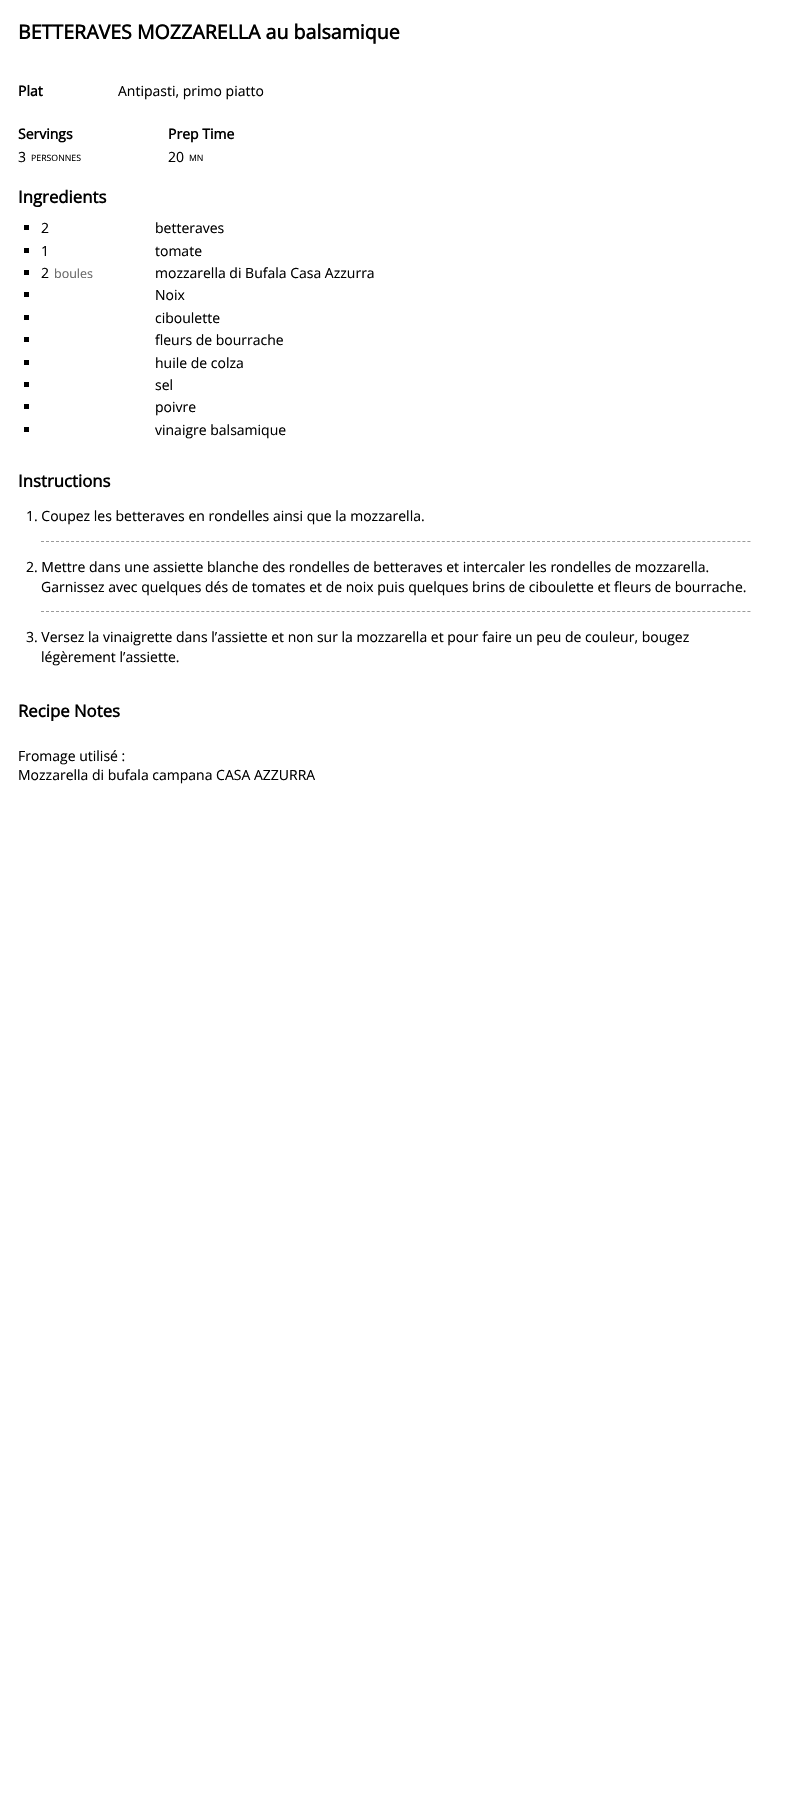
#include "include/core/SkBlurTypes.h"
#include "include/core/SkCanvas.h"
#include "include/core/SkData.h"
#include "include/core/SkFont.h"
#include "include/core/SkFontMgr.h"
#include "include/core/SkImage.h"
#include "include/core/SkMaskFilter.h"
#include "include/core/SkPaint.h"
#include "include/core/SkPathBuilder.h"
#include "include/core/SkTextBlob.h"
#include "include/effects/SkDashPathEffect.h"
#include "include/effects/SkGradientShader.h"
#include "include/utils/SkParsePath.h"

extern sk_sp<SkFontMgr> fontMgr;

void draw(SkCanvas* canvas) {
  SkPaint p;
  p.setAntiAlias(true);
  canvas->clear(SK_ColorWHITE);
  p.setColor(SK_ColorBLACK);
  canvas->drawRect(SkRect::MakeLTRB(24, 225, 29, 230), p);
  canvas->drawRect(SkRect::MakeLTRB(24, 248, 29, 253), p);
  canvas->drawRect(SkRect::MakeLTRB(24, 270, 29, 275), p);
  canvas->drawRect(SkRect::MakeLTRB(24, 292, 29, 297), p);
  canvas->drawRect(SkRect::MakeLTRB(24, 315, 29, 320), p);
  canvas->drawRect(SkRect::MakeLTRB(24, 337, 29, 342), p);
  canvas->drawRect(SkRect::MakeLTRB(24, 360, 29, 365), p);
  canvas->drawRect(SkRect::MakeLTRB(24, 382, 29, 387), p);
  canvas->drawRect(SkRect::MakeLTRB(24, 404, 29, 409), p);
  canvas->drawRect(SkRect::MakeLTRB(24, 427, 29, 432), p);
  p.setStyle(SkPaint::kStroke_Style);
  p.setStrokeWidth(1);
  p.setColor(SkColorSetRGB(153, 153, 153));
  p.setPathEffect(SkDashPathEffect::Make({{3, 2.01f}}, 0));
  canvas->drawPath(SkPathBuilder().moveTo(41, 541.5f).lineTo(751, 541.5f).detach(), p);
  p.setPathEffect(nullptr);
  p.setPathEffect(SkDashPathEffect::Make({{3, 2.01f}}, 0));
  canvas->drawPath(SkPathBuilder().moveTo(41, 611.5f).lineTo(751, 611.5f).detach(), p);
  p.setPathEffect(nullptr);
  SkFont font1(fontMgr->matchFamilyStyle("Open Sans", SkFontStyle::Bold()), 19.6f);
  font1.setSubpixel(true);
  p.setStyle(SkPaint::kFill_Style);
  p.setColor(SK_ColorBLACK);
  canvas->drawString("BETTERAVES MOZZARELLA au balsamique", 18, 39, font1, p);
  SkFont font2(fontMgr->matchFamilyStyle("Open Sans", SkFontStyle::Bold()), 14);
  font2.setSubpixel(true);
  canvas->drawString("Plat", 18, 96, font2, p);
  SkFont font3(fontMgr->matchFamilyStyle("Open Sans", SkFontStyle::Normal()), 14);
  font3.setSubpixel(true);
  canvas->drawString("Antipasti, primo piatto", 118, 96, font3, p);
  canvas->drawString("Servings", 18, 139, font2, p);
  canvas->drawString("Prep Time", 168, 139, font2, p);
  canvas->drawString("3", 18, 162, font3, p);
  SkFont font4(fontMgr->matchFamilyStyle("Open Sans", SkFontStyle::Normal()), 8.75f);
  font4.setSubpixel(true);
  canvas->drawString("PERSONNES", 31, 161, font4, p);
  canvas->drawString("20", 168, 162, font3, p);
  canvas->drawString("MN", 189, 161, font4, p);
  SkFont font5(fontMgr->matchFamilyStyle("Open Sans", SkFontStyle::Bold()), 16.75f);
  font5.setSubpixel(true);
  canvas->drawString("Ingredients", 18, 203, font5, p);
  canvas->drawString("2", 41, 233, font3, p);
  canvas->drawString("betteraves", 155, 233, font3, p);
  canvas->drawString("1", 41, 256, font3, p);
  canvas->drawString("tomate", 155, 256, font3, p);
  canvas->drawString("2", 41, 278, font3, p);
  SkFont font6(fontMgr->matchFamilyStyle("Open Sans", SkFontStyle::Normal()), 12.5f);
  font6.setSubpixel(true);
  p.setColor(SkColorSetRGB(102, 102, 102));
  canvas->drawString("boules", 54, 278, font6, p);
  p.setColor(SK_ColorBLACK);
  canvas->drawString("mozzarella di Bufala Casa Azzurra", 155, 278, font3, p);
  canvas->drawString("Noix", 155, 300, font3, p);
  canvas->drawString("ciboulette", 155, 323, font3, p);
  canvas->drawString("fleurs de bourrache", 155, 345, font3, p);
  canvas->drawString("huile de colza", 155, 368, font3, p);
  canvas->drawString("sel", 155, 390, font3, p);
  canvas->drawString("poivre", 155, 412, font3, p);
  canvas->drawString("vinaigre balsamique", 155, 435, font3, p);
  canvas->drawString("Instructions", 18, 487, font5, p);
  canvas->drawString("1. Coupez les betteraves en rondelles ainsi que la mozzarella.", 26, 521, font3, p);
  canvas->drawString("2. Mettre dans une assiette blanche des rondelles de betteraves et intercaler les rondelles de mozzarella.", 26, 572, font3, p);
  canvas->drawString("Garnissez avec quelques dés de tomates et de noix puis quelques brins de ciboulette et fleurs de bourrache.", 41, 592, font3, p);
  canvas->drawString("3. Versez la vinaigrette dans l’assiette et non sur la mozzarella et pour faire un peu de couleur, bougez", 26, 642, font3, p);
  canvas->drawString("légèrement l’assiette.", 41, 662, font3, p);
  canvas->drawString("Recipe Notes", 18, 717, font5, p);
  canvas->drawString("Fromage utilisé :", 18, 761, font3, p);
  canvas->drawString("Mozzarella di bufala campana CASA AZZURRA", 18, 780, font3, p);
}
